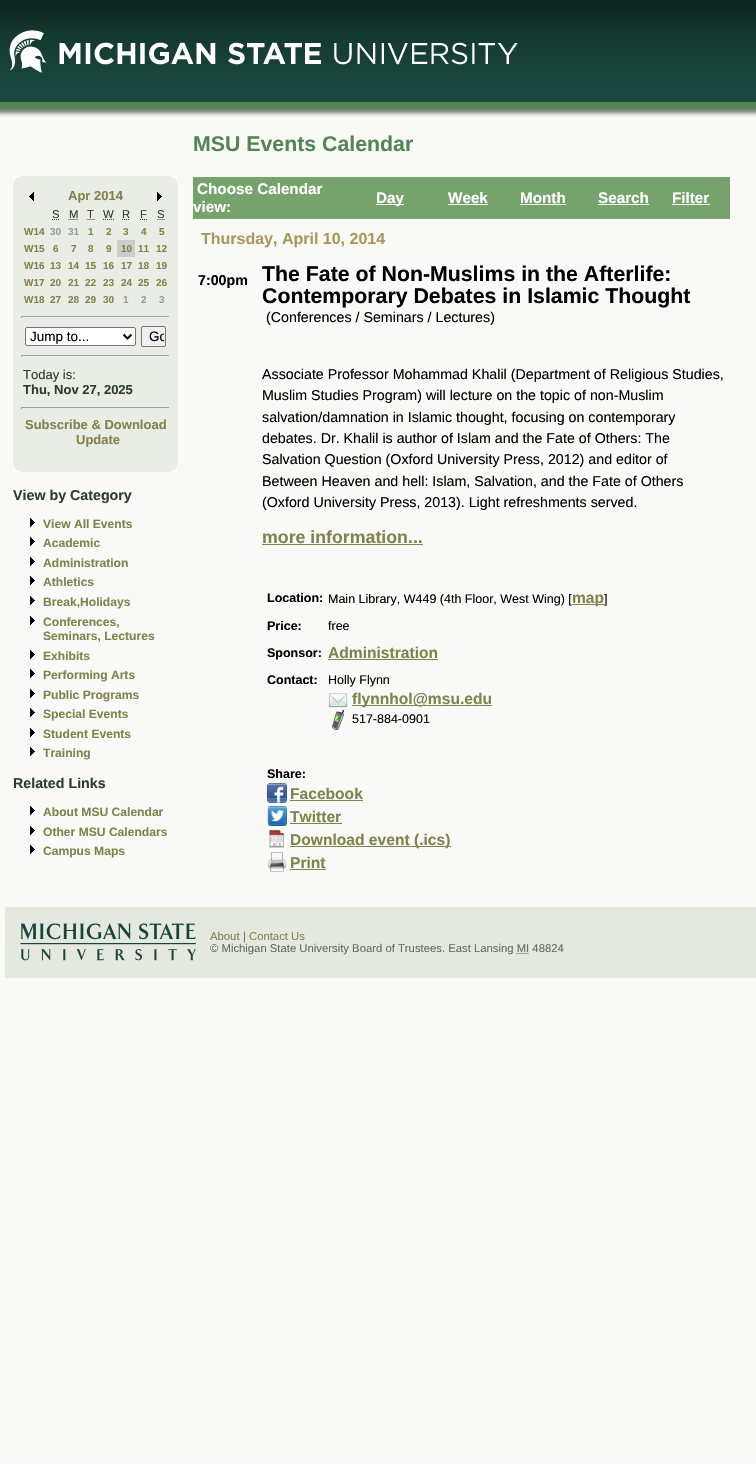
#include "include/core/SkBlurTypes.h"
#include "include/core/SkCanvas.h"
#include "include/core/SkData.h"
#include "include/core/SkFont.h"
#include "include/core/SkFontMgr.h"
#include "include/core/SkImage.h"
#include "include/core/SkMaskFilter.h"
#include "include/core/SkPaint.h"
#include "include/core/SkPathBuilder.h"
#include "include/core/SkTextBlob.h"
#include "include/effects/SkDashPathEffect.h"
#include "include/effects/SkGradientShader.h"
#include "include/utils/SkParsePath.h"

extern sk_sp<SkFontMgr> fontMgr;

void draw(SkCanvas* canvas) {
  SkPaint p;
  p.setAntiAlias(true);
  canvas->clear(SkColorSetRGB(249, 249, 247));
  canvas->drawImageRect(SkImages::DeferredFromEncodedData(SkData::MakeFromFileName("images/1.png")), SkRect::MakeLTRB(0, 0, 756, 117), SkSamplingOptions());
  canvas->drawImageRect(SkImages::DeferredFromEncodedData(SkData::MakeFromFileName("images/2.png")), SkRect::MakeLTRB(9, 30, 518, 73), SkSamplingOptions());
  p.setColor(SkColorSetRGB(234, 237, 230));
  canvas->drawRect(SkRect::MakeLTRB(13, 176, 21, 472), p);
  canvas->drawImageRect(SkImages::DeferredFromEncodedData(SkData::MakeFromFileName("images/3.png")), SkRect::MakeLTRB(13, 176, 20, 183), SkSamplingOptions());
  canvas->drawRect(SkRect::MakeLTRB(21, 176, 170, 472), p);
  canvas->drawRect(SkRect::MakeLTRB(170, 176, 178, 472), p);
  canvas->drawImageRect(SkImages::DeferredFromEncodedData(SkData::MakeFromFileName("images/4.png")), SkRect::MakeLTRB(171, 176, 178, 183), SkSamplingOptions());
  canvas->drawImageRect(SkImages::DeferredFromEncodedData(SkData::MakeFromFileName("images/5.png")), SkRect::MakeLTRB(29, 192, 34, 201), SkSamplingOptions());
  canvas->drawImageRect(SkImages::DeferredFromEncodedData(SkData::MakeFromFileName("images/6.png")), SkRect::MakeLTRB(157, 192, 162, 201), SkSamplingOptions());
  p.setStyle(SkPaint::kStroke_Style);
  p.setStrokeWidth(1);
  p.setColor(SkColorSetRGB(45, 60, 45));
  p.setPathEffect(SkDashPathEffect::Make({{1, 1}}, 0));
  canvas->drawPath(SkPathBuilder().moveTo(52, 219.5f).lineTo(59.5f, 219.5f).detach(), p);
  p.setPathEffect(nullptr);
  p.setPathEffect(SkDashPathEffect::Make({{1, 1}}, 0));
  canvas->drawPath(SkPathBuilder().moveTo(68.5f, 219.5f).lineTo(78, 219.5f).detach(), p);
  p.setPathEffect(nullptr);
  canvas->drawPath(SkPathBuilder().moveTo(87.5f, 219.5f).lineTo(88.5f, 219.5f).moveTo(89.5f, 219.5f).lineTo(90.5f, 219.5f).moveTo(91.5f, 219.5f).lineTo(92.5f, 219.5f).moveTo(93.5f, 219.5f).lineTo(94.5f, 219.5f).detach(), p);
  p.setPathEffect(SkDashPathEffect::Make({{1, 1}}, 0));
  canvas->drawPath(SkPathBuilder().moveTo(103, 219.5f).lineTo(114, 219.5f).detach(), p);
  p.setPathEffect(nullptr);
  p.setPathEffect(SkDashPathEffect::Make({{1, 1}}, 0));
  canvas->drawPath(SkPathBuilder().moveTo(122, 219.5f).lineTo(130, 219.5f).detach(), p);
  p.setPathEffect(nullptr);
  canvas->drawPath(SkPathBuilder().moveTo(140, 219.5f).lineTo(141, 219.5f).moveTo(142, 219.5f).lineTo(143, 219.5f).moveTo(144, 219.5f).lineTo(145, 219.5f).moveTo(146, 219.5f).lineTo(147, 219.5f).detach(), p);
  p.setPathEffect(SkDashPathEffect::Make({{1, 1}}, 0));
  canvas->drawPath(SkPathBuilder().moveTo(157.5f, 219.5f).lineTo(165, 219.5f).detach(), p);
  p.setPathEffect(nullptr);
  p.setStyle(SkPaint::kFill_Style);
  p.setColor(SkColorSetRGB(204, 204, 204));
  canvas->drawRect(SkRect::MakeLTRB(117, 240, 135, 257), p);
  p.setColor(SkColorSetRGB(159, 159, 159));
  canvas->drawRect(SkRect::MakeLTRB(21, 316, 170, 317), p);
  p.setColor(SkColorSetRGB(238, 238, 238));
  canvas->drawRect(SkRect::MakeLTRB(169, 316, 170, 318), p);
  canvas->drawRect(SkRect::MakeLTRB(21, 317, 170, 318), p);
  p.setColor(SkColorSetRGB(159, 159, 159));
  canvas->drawRect(SkRect::MakeLTRB(21, 316, 22, 318), p);
  p.setColor(SK_ColorWHITE);
  canvas->drawRoundRect(SkRect::MakeLTRB(25.5f, 327.5f, 135.5f, 345.5f), 1.5f, 1.5f, p);
  p.setStyle(SkPaint::kStroke_Style);
  p.setColor(SkColorSetRGB(118, 118, 118));
  canvas->drawRoundRect(SkRect::MakeLTRB(25.5f, 327.5f, 135.5f, 345.5f), 1.5f, 1.5f, p);
  p.setStrokeWidth(2);
  p.setColor(SK_ColorBLACK);
  canvas->drawPath(SkPathBuilder().moveTo(123.5f, 334.5f).lineTo(127.5f, 338.5f).lineTo(131.5f, 334.5f).detach(), p);
  p.setStyle(SkPaint::kFill_Style);
  p.setColor(SkColorSetRGB(239, 239, 239));
  canvas->drawRoundRect(SkRect::MakeLTRB(141.5f, 326.5f, 165.5f, 346.5f), 1.5f, 1.5f, p);
  p.setStyle(SkPaint::kStroke_Style);
  p.setStrokeWidth(1);
  p.setColor(SkColorSetRGB(118, 118, 118));
  canvas->drawRoundRect(SkRect::MakeLTRB(141.5f, 326.5f, 165.5f, 346.5f), 1.5f, 1.5f, p);
  p.setStyle(SkPaint::kFill_Style);
  p.setColor(SkColorSetRGB(159, 159, 159));
  canvas->drawRect(SkRect::MakeLTRB(21, 355, 170, 356), p);
  p.setColor(SkColorSetRGB(238, 238, 238));
  canvas->drawRect(SkRect::MakeLTRB(169, 355, 170, 357), p);
  canvas->drawRect(SkRect::MakeLTRB(21, 356, 170, 357), p);
  p.setColor(SkColorSetRGB(159, 159, 159));
  canvas->drawRect(SkRect::MakeLTRB(21, 355, 22, 357), p);
  canvas->drawRect(SkRect::MakeLTRB(21, 407, 170, 408), p);
  p.setColor(SkColorSetRGB(238, 238, 238));
  canvas->drawRect(SkRect::MakeLTRB(169, 407, 170, 409), p);
  canvas->drawRect(SkRect::MakeLTRB(21, 408, 170, 409), p);
  p.setColor(SkColorSetRGB(159, 159, 159));
  canvas->drawRect(SkRect::MakeLTRB(21, 407, 22, 409), p);
  canvas->drawImageRect(SkImages::DeferredFromEncodedData(SkData::MakeFromFileName("images/7.png")), SkRect::MakeLTRB(13, 465, 20, 472), SkSamplingOptions());
  canvas->drawImageRect(SkImages::DeferredFromEncodedData(SkData::MakeFromFileName("images/8.png")), SkRect::MakeLTRB(171, 465, 178, 472), SkSamplingOptions());
  canvas->drawImageRect(SkImages::DeferredFromEncodedData(SkData::MakeFromFileName("images/9.png")), SkRect::MakeLTRB(30, 518, 35, 527), SkSamplingOptions());
  canvas->drawImageRect(SkImages::DeferredFromEncodedData(SkData::MakeFromFileName("images/9.png")), SkRect::MakeLTRB(30, 537, 35, 546), SkSamplingOptions());
  canvas->drawImageRect(SkImages::DeferredFromEncodedData(SkData::MakeFromFileName("images/9.png")), SkRect::MakeLTRB(30, 557, 35, 566), SkSamplingOptions());
  canvas->drawImageRect(SkImages::DeferredFromEncodedData(SkData::MakeFromFileName("images/9.png")), SkRect::MakeLTRB(30, 576, 35, 585), SkSamplingOptions());
  canvas->drawImageRect(SkImages::DeferredFromEncodedData(SkData::MakeFromFileName("images/9.png")), SkRect::MakeLTRB(30, 596, 35, 605), SkSamplingOptions());
  canvas->drawImageRect(SkImages::DeferredFromEncodedData(SkData::MakeFromFileName("images/9.png")), SkRect::MakeLTRB(30, 616, 35, 625), SkSamplingOptions());
  canvas->drawImageRect(SkImages::DeferredFromEncodedData(SkData::MakeFromFileName("images/9.png")), SkRect::MakeLTRB(30, 650, 35, 659), SkSamplingOptions());
  canvas->drawImageRect(SkImages::DeferredFromEncodedData(SkData::MakeFromFileName("images/9.png")), SkRect::MakeLTRB(30, 669, 35, 678), SkSamplingOptions());
  canvas->drawImageRect(SkImages::DeferredFromEncodedData(SkData::MakeFromFileName("images/9.png")), SkRect::MakeLTRB(30, 689, 35, 698), SkSamplingOptions());
  canvas->drawImageRect(SkImages::DeferredFromEncodedData(SkData::MakeFromFileName("images/9.png")), SkRect::MakeLTRB(30, 708, 35, 717), SkSamplingOptions());
  canvas->drawImageRect(SkImages::DeferredFromEncodedData(SkData::MakeFromFileName("images/9.png")), SkRect::MakeLTRB(30, 728, 35, 737), SkSamplingOptions());
  canvas->drawImageRect(SkImages::DeferredFromEncodedData(SkData::MakeFromFileName("images/9.png")), SkRect::MakeLTRB(30, 747, 35, 756), SkSamplingOptions());
  canvas->drawImageRect(SkImages::DeferredFromEncodedData(SkData::MakeFromFileName("images/9.png")), SkRect::MakeLTRB(30, 806, 35, 815), SkSamplingOptions());
  canvas->drawImageRect(SkImages::DeferredFromEncodedData(SkData::MakeFromFileName("images/9.png")), SkRect::MakeLTRB(30, 826, 35, 835), SkSamplingOptions());
  canvas->drawImageRect(SkImages::DeferredFromEncodedData(SkData::MakeFromFileName("images/9.png")), SkRect::MakeLTRB(30, 845, 35, 854), SkSamplingOptions());
  p.setColor(SkColorSetRGB(117, 163, 107));
  canvas->drawRect(SkRect::MakeLTRB(193, 177, 730, 219), p);
  p.setColor(SK_ColorWHITE);
  canvas->drawRect(SkRect::MakeLTRB(376, 204, 404, 205), p);
  canvas->drawRect(SkRect::MakeLTRB(448, 204, 488, 205), p);
  canvas->drawRect(SkRect::MakeLTRB(520, 204, 566, 205), p);
  canvas->drawRect(SkRect::MakeLTRB(598, 204, 649, 205), p);
  canvas->drawRect(SkRect::MakeLTRB(672, 204, 710, 205), p);
  p.setColor(SkColorSetRGB(130, 130, 75));
  canvas->drawRect(SkRect::MakeLTRB(262, 544, 423, 545), p);
  canvas->drawRect(SkRect::MakeLTRB(572, 604, 604, 605), p);
  canvas->drawRect(SkRect::MakeLTRB(328, 659, 438, 660), p);
  canvas->drawImageRect(SkImages::DeferredFromEncodedData(SkData::MakeFromFileName("images/10.png")), SkRect::MakeLTRB(328, 693, 348, 708), SkSamplingOptions());
  canvas->drawRect(SkRect::MakeLTRB(352, 705, 492, 706), p);
  canvas->drawImageRect(SkImages::DeferredFromEncodedData(SkData::MakeFromFileName("images/11.png")), SkRect::MakeLTRB(332, 710, 344, 730), SkSamplingOptions());
  canvas->drawImageRect(SkImages::DeferredFromEncodedData(SkData::MakeFromFileName("images/12.png")), SkRect::MakeLTRB(267, 783, 287, 803), SkSamplingOptions());
  canvas->drawRect(SkRect::MakeLTRB(290, 800, 363, 801), p);
  canvas->drawImageRect(SkImages::DeferredFromEncodedData(SkData::MakeFromFileName("images/13.png")), SkRect::MakeLTRB(267, 806, 287, 826), SkSamplingOptions());
  canvas->drawRect(SkRect::MakeLTRB(290, 823, 342, 824), p);
  canvas->drawImageRect(SkImages::DeferredFromEncodedData(SkData::MakeFromFileName("images/14.png")), SkRect::MakeLTRB(267, 829, 284, 848), SkSamplingOptions());
  canvas->drawRect(SkRect::MakeLTRB(290, 846, 451, 847), p);
  canvas->drawImageRect(SkImages::DeferredFromEncodedData(SkData::MakeFromFileName("images/15.png")), SkRect::MakeLTRB(267, 852, 287, 872), SkSamplingOptions());
  canvas->drawRect(SkRect::MakeLTRB(290, 869, 326, 870), p);
  p.setColor(SkColorSetRGB(228, 232, 222));
  canvas->drawRect(SkRect::MakeLTRB(5, 907, 756, 978), p);
  canvas->drawImageRect(SkImages::DeferredFromEncodedData(SkData::MakeFromFileName("images/16.png")), SkRect::MakeLTRB(20, 923, 196, 961), SkSamplingOptions());
  p.setStyle(SkPaint::kStroke_Style);
  p.setColor(SkColorSetRGB(104, 105, 99));
  p.setPathEffect(SkDashPathEffect::Make({{1, 1}}, 0));
  canvas->drawPath(SkPathBuilder().moveTo(516.5f, 953.5f).lineTo(529, 953.5f).detach(), p);
  p.setPathEffect(nullptr);
  SkFont font1(fontMgr->matchFamilyStyle("Liberation Sans", SkFontStyle::Bold()), 13);
  font1.setSubpixel(true);
  p.setStyle(SkPaint::kFill_Style);
  p.setColor(SkColorSetRGB(130, 130, 75));
  canvas->drawString("Apr 2014", 68, 200, font1, p);
  SkFont font2(fontMgr->matchFamilyStyle("Liberation Sans", SkFontStyle::Normal()), 11.3f);
  font2.setSubpixel(true);
  p.setColor(SkColorSetRGB(45, 60, 45));
  canvas->drawString("S", 52, 218, font2, p);
  canvas->drawString("M", 69, 218, font2, p);
  canvas->drawString("T", 87, 218, font2, p);
  canvas->drawString("W", 103, 218, font2, p);
  canvas->drawString("R", 122, 218, font2, p);
  canvas->drawString("F", 140, 218, font2, p);
  canvas->drawString("S", 157, 218, font2, p);
  SkFont font3(fontMgr->matchFamilyStyle("Liberation Sans", SkFontStyle::Bold()), 10);
  font3.setSubpixel(true);
  p.setColor(SkColorSetRGB(130, 130, 75));
  canvas->drawString("W14", 24, 235, font3, p);
  p.setColor(SkColorSetRGB(153, 153, 153));
  canvas->drawString("30", 50, 235, font3, p);
  canvas->drawString("31", 68, 235, font3, p);
  p.setColor(SkColorSetRGB(130, 130, 75));
  canvas->drawString("1", 88, 235, font3, p);
  canvas->drawString("2", 106, 235, font3, p);
  canvas->drawString("3", 123, 235, font3, p);
  canvas->drawString("4", 141, 235, font3, p);
  canvas->drawString("5", 159, 235, font3, p);
  canvas->drawString("W15", 24, 252, font3, p);
  canvas->drawString("6", 53, 252, font3, p);
  canvas->drawString("7", 71, 252, font3, p);
  canvas->drawString("8", 88, 252, font3, p);
  canvas->drawString("9", 106, 252, font3, p);
  canvas->drawString("10", 121, 252, font3, p);
  canvas->drawString("11", 138, 252, font3, p);
  canvas->drawString("12", 156, 252, font3, p);
  canvas->drawString("W16", 24, 269, font3, p);
  canvas->drawString("13", 50, 269, font3, p);
  canvas->drawString("14", 68, 269, font3, p);
  canvas->drawString("15", 85, 269, font3, p);
  canvas->drawString("16", 103, 269, font3, p);
  canvas->drawString("17", 121, 269, font3, p);
  canvas->drawString("18", 138, 269, font3, p);
  canvas->drawString("19", 156, 269, font3, p);
  canvas->drawString("W17", 24, 286, font3, p);
  canvas->drawString("20", 50, 286, font3, p);
  canvas->drawString("21", 68, 286, font3, p);
  canvas->drawString("22", 85, 286, font3, p);
  canvas->drawString("23", 103, 286, font3, p);
  canvas->drawString("24", 121, 286, font3, p);
  canvas->drawString("25", 138, 286, font3, p);
  canvas->drawString("26", 156, 286, font3, p);
  canvas->drawString("W18", 24, 303, font3, p);
  canvas->drawString("27", 50, 303, font3, p);
  canvas->drawString("28", 68, 303, font3, p);
  canvas->drawString("29", 85, 303, font3, p);
  canvas->drawString("30", 103, 303, font3, p);
  p.setColor(SkColorSetRGB(153, 153, 153));
  canvas->drawString("1", 123, 303, font3, p);
  canvas->drawString("2", 141, 303, font3, p);
  canvas->drawString("3", 159, 303, font3, p);
  SkFont font4(fontMgr->matchFamilyStyle("Liberation Sans", SkFontStyle::Normal()), 13.5f);
  font4.setSubpixel(true);
  p.setColor(SK_ColorBLACK);
  canvas->drawString("Jump to...", 30, 341, font4, p);
  canvas->save();
  canvas->clipRect(SkRect::MakeLTRB(143, 328, 164, 345));
  canvas->drawString("Go", 149, 341, font4, p);
  canvas->restore();
  SkFont font5(fontMgr->matchFamilyStyle("Liberation Sans", SkFontStyle::Normal()), 13);
  font5.setSubpixel(true);
  p.setColor(SkColorSetRGB(45, 60, 45));
  canvas->drawString("Today is:", 23, 379, font5, p);
  canvas->drawString("Thu, Nov 27, 2025", 23, 394, font1, p);
  p.setColor(SkColorSetRGB(130, 130, 75));
  canvas->drawString("Subscribe & Download", 25, 429, font1, p);
  canvas->drawString("Update", 76, 444, font1, p);
  SkFont font6(fontMgr->matchFamilyStyle("Liberation Sans", SkFontStyle::Bold()), 14.25f);
  font6.setSubpixel(true);
  p.setColor(SkColorSetRGB(45, 60, 45));
  canvas->drawString("View by Category", 13, 500, font6, p);
  SkFont font7(fontMgr->matchFamilyStyle("Liberation Sans", SkFontStyle::Bold()), 12.1f);
  font7.setSubpixel(true);
  p.setColor(SkColorSetRGB(130, 130, 75));
  canvas->drawString("View All Events", 43, 528, font7, p);
  canvas->drawString("Academic", 43, 547, font7, p);
  canvas->drawString("Administration", 43, 567, font7, p);
  canvas->drawString("Athletics", 43, 586, font7, p);
  canvas->drawString("Break,Holidays", 43, 606, font7, p);
  canvas->drawString("Conferences,", 43, 626, font7, p);
  canvas->drawString("Seminars, Lectures", 43, 640, font7, p);
  canvas->drawString("Exhibits", 43, 660, font7, p);
  canvas->drawString("Performing Arts", 43, 679, font7, p);
  canvas->drawString("Public Programs", 43, 699, font7, p);
  canvas->drawString("Special Events", 43, 718, font7, p);
  canvas->drawString("Student Events", 43, 738, font7, p);
  canvas->drawString("Training", 43, 757, font7, p);
  p.setColor(SkColorSetRGB(45, 60, 45));
  canvas->drawString("Related Links", 13, 788, font6, p);
  p.setColor(SkColorSetRGB(130, 130, 75));
  canvas->drawString("About MSU Calendar", 43, 816, font7, p);
  canvas->drawString("Other MSU Calendars", 43, 836, font7, p);
  canvas->drawString("Campus Maps", 43, 855, font7, p);
  SkFont font8(fontMgr->matchFamilyStyle("Liberation Sans", SkFontStyle::Bold()), 21.3f);
  font8.setSubpixel(true);
  p.setColor(SkColorSetRGB(84, 134, 84));
  canvas->drawString("MSU Events Calendar", 193, 151, font8, p);
  SkFont font9(fontMgr->matchFamilyStyle("Liberation Sans", SkFontStyle::Bold()), 15.25f);
  font9.setSubpixel(true);
  p.setColor(SK_ColorWHITE);
  canvas->drawString("Choose Calendar", 197, 194, font9, p);
  canvas->drawString("view:", 193, 212, font9, p);
  canvas->drawString("Day", 376, 203, font9, p);
  canvas->drawString("Week", 448, 203, font9, p);
  canvas->drawString("Month", 520, 203, font9, p);
  canvas->drawString("Search", 598, 203, font9, p);
  canvas->drawString("Filter", 672, 203, font9, p);
  SkFont font10(fontMgr->matchFamilyStyle("Liberation Sans", SkFontStyle::Bold()), 16);
  font10.setSubpixel(true);
  p.setColor(SkColorSetRGB(170, 151, 91));
  canvas->drawString("Thursday, April 10, 2014", 201, 244, font10, p);
  p.setColor(SK_ColorBLACK);
  canvas->drawString("7:00pm", 198, 285, font6, p);
  canvas->drawString("The Fate of Non-Muslims in the Afterlife:", 262, 281, font8, p);
  canvas->drawString("Contemporary Debates in Islamic Thought", 262, 303, font8, p);
  SkFont font11(fontMgr->matchFamilyStyle("Liberation Sans", SkFontStyle::Normal()), 14.25f);
  font11.setSubpixel(true);
  canvas->drawString("(Conferences / Seminars / Lectures)", 266, 322, font11, p);
  canvas->drawString("Associate Professor Mohammad Khalil (Department of Religious Studies,", 262, 379, font11, p);
  canvas->drawString("Muslim Studies Program) will lecture on the topic of non-Muslim", 262, 400, font11, p);
  canvas->drawString("salvation/damnation in Islamic thought, focusing on contemporary", 262, 422, font11, p);
  canvas->drawString("debates. Dr. Khalil is author of Islam and the Fate of Others: The", 262, 443, font11, p);
  canvas->drawString("Salvation Question (Oxford University Press, 2012) and editor of", 262, 464, font11, p);
  canvas->drawString("Between Heaven and hell: Islam, Salvation, and the Fate of Others", 262, 486, font11, p);
  canvas->drawString("(Oxford University Press, 2013). Light refreshments served.", 262, 507, font11, p);
  SkFont font12(fontMgr->matchFamilyStyle("Liberation Sans", SkFontStyle::Bold()), 17.75f);
  font12.setSubpixel(true);
  p.setColor(SkColorSetRGB(130, 130, 75));
  canvas->drawString("more information...", 262, 543, font12, p);
  SkFont font13(fontMgr->matchFamilyStyle("Liberation Sans", SkFontStyle::Bold()), 12.5f);
  font13.setSubpixel(true);
  p.setColor(SK_ColorBLACK);
  canvas->drawString("Location:", 267, 602, font13, p);
  SkFont font14(fontMgr->matchFamilyStyle("Liberation Sans", SkFontStyle::Normal()), 12.5f);
  font14.setSubpixel(true);
  canvas->drawString("Main Library, W449 (4th Floor, West Wing) [", 328, 603, font14, p);
  SkFont font15(fontMgr->matchFamilyStyle("Liberation Sans", SkFontStyle::Bold()), 15.6f);
  font15.setSubpixel(true);
  p.setColor(SkColorSetRGB(130, 130, 75));
  canvas->drawString("map", 572, 603, font15, p);
  p.setColor(SK_ColorBLACK);
  canvas->drawString("]", 604, 603, font14, p);
  canvas->drawString("Price:", 267, 630, font13, p);
  canvas->drawString("free", 328, 630, font14, p);
  canvas->drawString("Sponsor:", 267, 657, font13, p);
  p.setColor(SkColorSetRGB(130, 130, 75));
  canvas->drawString("Administration", 328, 658, font15, p);
  p.setColor(SK_ColorBLACK);
  canvas->drawString("Contact:", 267, 684, font13, p);
  canvas->drawString("Holly Flynn", 328, 684, font14, p);
  p.setColor(SkColorSetRGB(130, 130, 75));
  canvas->drawString("flynnhol@msu.edu", 352, 704, font15, p);
  p.setColor(SK_ColorBLACK);
  canvas->drawString("517-884-0901", 352, 723, font14, p);
  canvas->drawString("Share:", 267, 778, font13, p);
  p.setColor(SkColorSetRGB(130, 130, 75));
  canvas->drawString("Facebook", 290, 799, font15, p);
  canvas->drawString("Twitter", 290, 822, font15, p);
  canvas->drawString("Download event (.ics)", 290, 845, font15, p);
  canvas->drawString("Print", 290, 868, font15, p);
  canvas->drawString("About", 210, 940, font2, p);
  p.setColor(SkColorSetRGB(104, 105, 99));
  canvas->drawString("|", 243, 940, font2, p);
  p.setColor(SkColorSetRGB(130, 130, 75));
  canvas->drawString("Contact Us", 249, 940, font2, p);
  p.setColor(SkColorSetRGB(104, 105, 99));
  canvas->drawString("© Michigan State University Board of Trustees. East Lansing MI 48824", 210, 952, font2, p);
}
